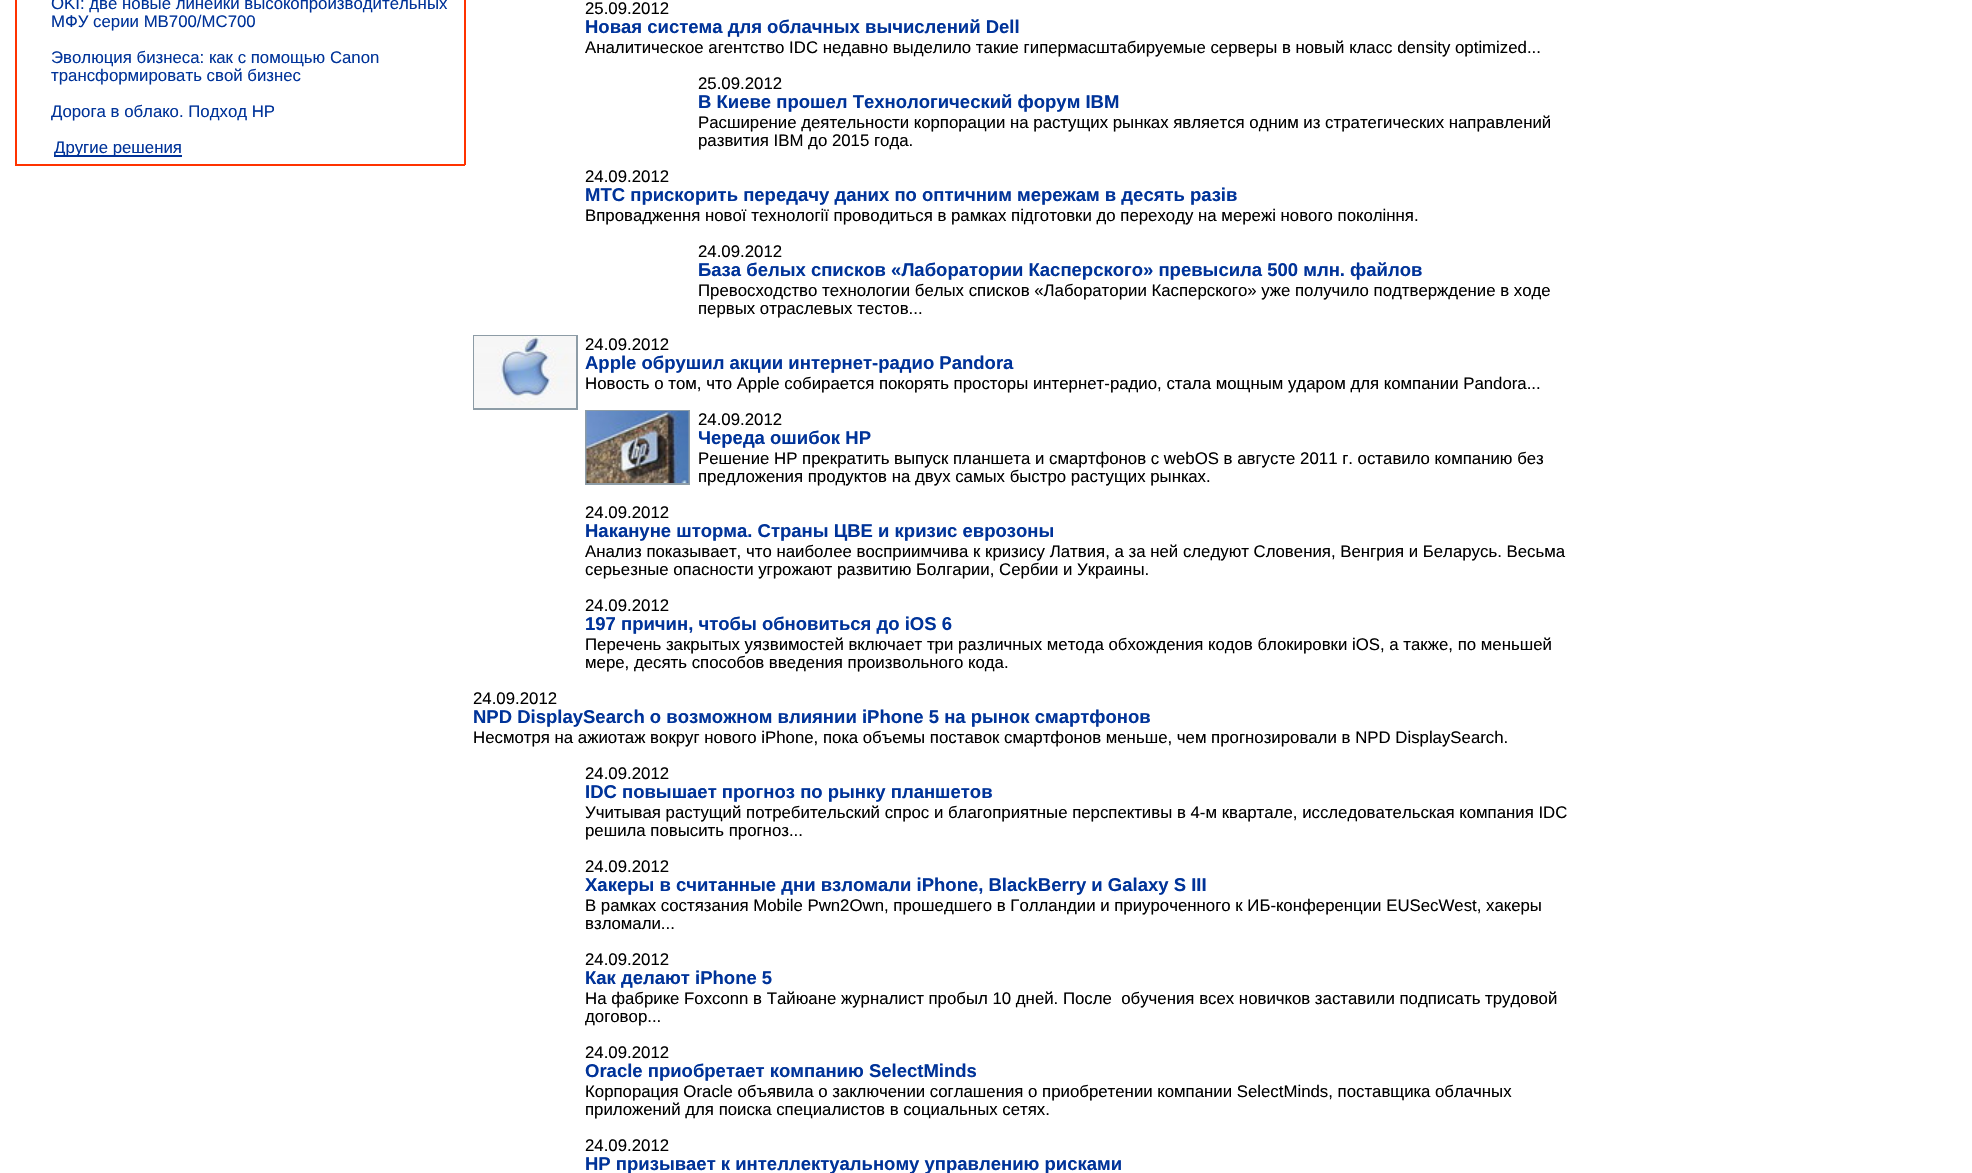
#include "include/core/SkBlurTypes.h"
#include "include/core/SkCanvas.h"
#include "include/core/SkData.h"
#include "include/core/SkFont.h"
#include "include/core/SkFontMgr.h"
#include "include/core/SkImage.h"
#include "include/core/SkMaskFilter.h"
#include "include/core/SkPaint.h"
#include "include/core/SkPathBuilder.h"
#include "include/core/SkTextBlob.h"
#include "include/effects/SkDashPathEffect.h"
#include "include/effects/SkGradientShader.h"
#include "include/utils/SkParsePath.h"

extern sk_sp<SkFontMgr> fontMgr;

void draw(SkCanvas* canvas) {
  SkPaint p;
  p.setAntiAlias(true);
  canvas->clear(SK_ColorWHITE);
  p.setColor(SkColorSetRGB(255, 51, 0));
  canvas->drawRect(SkRect::MakeLTRB(464, 0, 466, 165), p);
  canvas->drawRect(SkRect::MakeLTRB(15, 164, 465, 166), p);
  canvas->drawRect(SkRect::MakeLTRB(15, 0, 17, 165), p);
  p.setColor(SkColorSetRGB(0, 51, 153));
  canvas->drawRect(SkRect::MakeLTRB(54, 155, 182, 157), p);
  p.setStyle(SkPaint::kStroke_Style);
  p.setStrokeWidth(2);
  p.setColor(SkColorSetRGB(141, 156, 166));
  canvas->drawRect(SkRect::MakeLTRB(474, 336, 577, 409), p);
  canvas->drawImageRect(SkImages::DeferredFromEncodedData(SkData::MakeFromFileName("images/1.png")), SkRect::MakeLTRB(474, 336, 576, 408), SkSamplingOptions());
  canvas->drawRect(SkRect::MakeLTRB(586, 411, 689, 484), p);
  canvas->drawImageRect(SkImages::DeferredFromEncodedData(SkData::MakeFromFileName("images/2.png")), SkRect::MakeLTRB(586, 411, 689, 483), SkSamplingOptions());
  SkFont font1(fontMgr->matchFamilyStyle("Liberation Sans", SkFontStyle::Normal()), 16.8f);
  font1.setSubpixel(true);
  p.setStyle(SkPaint::kFill_Style);
  p.setColor(SkColorSetRGB(0, 51, 153));
  canvas->drawString("OKI: две новые линейки высокопроизводительных", 51, 9, font1, p);
  canvas->drawString("МФУ серии МВ700/MC700", 51, 27, font1, p);
  canvas->drawString("Эволюция бизнеса: как с помощью Canon", 51, 63, font1, p);
  canvas->drawString("трансформировать свой бизнес", 51, 81, font1, p);
  canvas->drawString("Дорога в облако. Подход HP", 51, 117, font1, p);
  canvas->drawString("Другие решения", 54, 153, font1, p);
  p.setColor(SK_ColorBLACK);
  canvas->drawString("25.09.2012", 585, 14, font1, p);
  SkFont font2(fontMgr->matchFamilyStyle("Liberation Sans", SkFontStyle::Bold()), 18.5f);
  font2.setSubpixel(true);
  p.setColor(SkColorSetRGB(0, 51, 153));
  canvas->drawString("Новая система для облачных вычислений Dell", 585, 33, font2, p);
  p.setColor(SK_ColorBLACK);
  canvas->drawString("Аналитическое агентство IDC недавно выделило такие гипермасштабируемые серверы в новый класс density optimized...", 585, 53, font1, p);
  canvas->drawString("25.09.2012", 698, 89, font1, p);
  p.setColor(SkColorSetRGB(0, 51, 153));
  canvas->drawString("В Киеве прошел Технологический форум IBM", 698, 108, font2, p);
  p.setColor(SK_ColorBLACK);
  canvas->drawString("Расширение деятельности корпорации на растущих рынках является одним из стратегических направлений", 698, 128, font1, p);
  canvas->drawString("развития IBM до 2015 года.", 698, 146, font1, p);
  canvas->drawString("24.09.2012", 585, 182, font1, p);
  p.setColor(SkColorSetRGB(0, 51, 153));
  canvas->drawString("МТС прискорить передачу даних по оптичним мережам в десять разів", 585, 201, font2, p);
  p.setColor(SK_ColorBLACK);
  canvas->drawString("Впровадження нової технології проводиться в рамках підготовки до переходу на мережі нового покоління.", 585, 221, font1, p);
  canvas->drawString("24.09.2012", 698, 257, font1, p);
  p.setColor(SkColorSetRGB(0, 51, 153));
  canvas->drawString("База белых списков «Лаборатории Касперского» превысила 500 млн. файлов", 698, 276, font2, p);
  p.setColor(SK_ColorBLACK);
  canvas->drawString("Превосходство технологии белых списков «Лаборатории Касперского» уже получило подтверждение в ходе", 698, 296, font1, p);
  canvas->drawString("первых отраслевых тестов...", 698, 314, font1, p);
  canvas->drawString("24.09.2012", 585, 350, font1, p);
  p.setColor(SkColorSetRGB(0, 51, 153));
  canvas->drawString("Apple обрушил акции интернет-радио Pandora", 585, 369, font2, p);
  p.setColor(SK_ColorBLACK);
  canvas->drawString("Новость о том, что Apple собирается покорять просторы интернет-радио, стала мощным ударом для компании Pandora...", 585, 389, font1, p);
  canvas->drawString("24.09.2012", 698, 425, font1, p);
  p.setColor(SkColorSetRGB(0, 51, 153));
  canvas->drawString("Череда ошибок HP", 698, 444, font2, p);
  p.setColor(SK_ColorBLACK);
  canvas->drawString("Решение HP прекратить выпуск планшета и смартфонов с webOS в августе 2011 г. оставило компанию без", 698, 464, font1, p);
  canvas->drawString("предложения продуктов на двух самых быстро растущих рынках.", 698, 482, font1, p);
  canvas->drawString("24.09.2012", 585, 518, font1, p);
  p.setColor(SkColorSetRGB(0, 51, 153));
  canvas->drawString("Накануне шторма. Страны ЦВЕ и кризис еврозоны", 585, 537, font2, p);
  p.setColor(SK_ColorBLACK);
  canvas->drawString("Анализ показывает, что наиболее восприимчива к кризису Латвия, а за ней следуют Словения, Венгрия и Беларусь. Весьма", 585, 557, font1, p);
  canvas->drawString("серьезные опасности угрожают развитию Болгарии, Сербии и Украины.", 585, 575, font1, p);
  canvas->drawString("24.09.2012", 585, 611, font1, p);
  p.setColor(SkColorSetRGB(0, 51, 153));
  canvas->drawString("197 причин, чтобы обновиться до iOS 6", 585, 630, font2, p);
  p.setColor(SK_ColorBLACK);
  canvas->drawString("Перечень закрытых уязвимостей включает три различных метода обхождения кодов блокировки iOS, а также, по меньшей", 585, 650, font1, p);
  canvas->drawString("мере, десять способов введения произвольного кода.", 585, 668, font1, p);
  canvas->drawString("24.09.2012", 473, 704, font1, p);
  p.setColor(SkColorSetRGB(0, 51, 153));
  canvas->drawString("NPD DisplaySearch о возможном влиянии iPhone 5 на рынок смартфонов", 473, 723, font2, p);
  p.setColor(SK_ColorBLACK);
  canvas->drawString("Несмотря на ажиотаж вокруг нового iPhone, пока объемы поставок смартфонов меньше, чем прогнозировали в NPD DisplaySearch.", 473, 743, font1, p);
  canvas->drawString("24.09.2012", 585, 779, font1, p);
  p.setColor(SkColorSetRGB(0, 51, 153));
  canvas->drawString("IDC повышает прогноз по рынку планшетов", 585, 798, font2, p);
  p.setColor(SK_ColorBLACK);
  canvas->drawString("Учитывая растущий потребительский спрос и благоприятные перспективы в 4-м квартале, исследовательская компания IDC", 585, 818, font1, p);
  canvas->drawString("решила повысить прогноз...", 585, 836, font1, p);
  canvas->drawString("24.09.2012", 585, 872, font1, p);
  p.setColor(SkColorSetRGB(0, 51, 153));
  canvas->drawString("Хакеры в считанные дни взломали iPhone, BlackBerry и Galaxy S III", 585, 891, font2, p);
  p.setColor(SK_ColorBLACK);
  canvas->drawString("В рамках состязания Mobile Pwn2Own, прошедшего в Голландии и приуроченного к ИБ-конференции EUSecWest, хакеры", 585, 911, font1, p);
  canvas->drawString("взломали...", 585, 929, font1, p);
  canvas->drawString("24.09.2012", 585, 965, font1, p);
  p.setColor(SkColorSetRGB(0, 51, 153));
  canvas->drawString("Как делают iPhone 5", 585, 984, font2, p);
  p.setColor(SK_ColorBLACK);
  canvas->drawString("На фабрике Foxconn в Тайюане журналист пробыл 10 дней. После  обучения всех новичков заставили подписать трудовой", 585, 1004, font1, p);
  canvas->drawString("договор...", 585, 1022, font1, p);
  canvas->drawString("24.09.2012", 585, 1058, font1, p);
  p.setColor(SkColorSetRGB(0, 51, 153));
  canvas->drawString("Oracle приобретает компанию SelectMinds", 585, 1077, font2, p);
  p.setColor(SK_ColorBLACK);
  canvas->drawString("Корпорация Oracle объявила о заключении соглашения о приобретении компании SelectMinds, поставщика облачных", 585, 1097, font1, p);
  canvas->drawString("приложений для поиска специалистов в социальных сетях.", 585, 1115, font1, p);
  canvas->drawString("24.09.2012", 585, 1151, font1, p);
  p.setColor(SkColorSetRGB(0, 51, 153));
  canvas->drawString("HP призывает к интеллектуальному управлению рисками", 585, 1170, font2, p);
}
